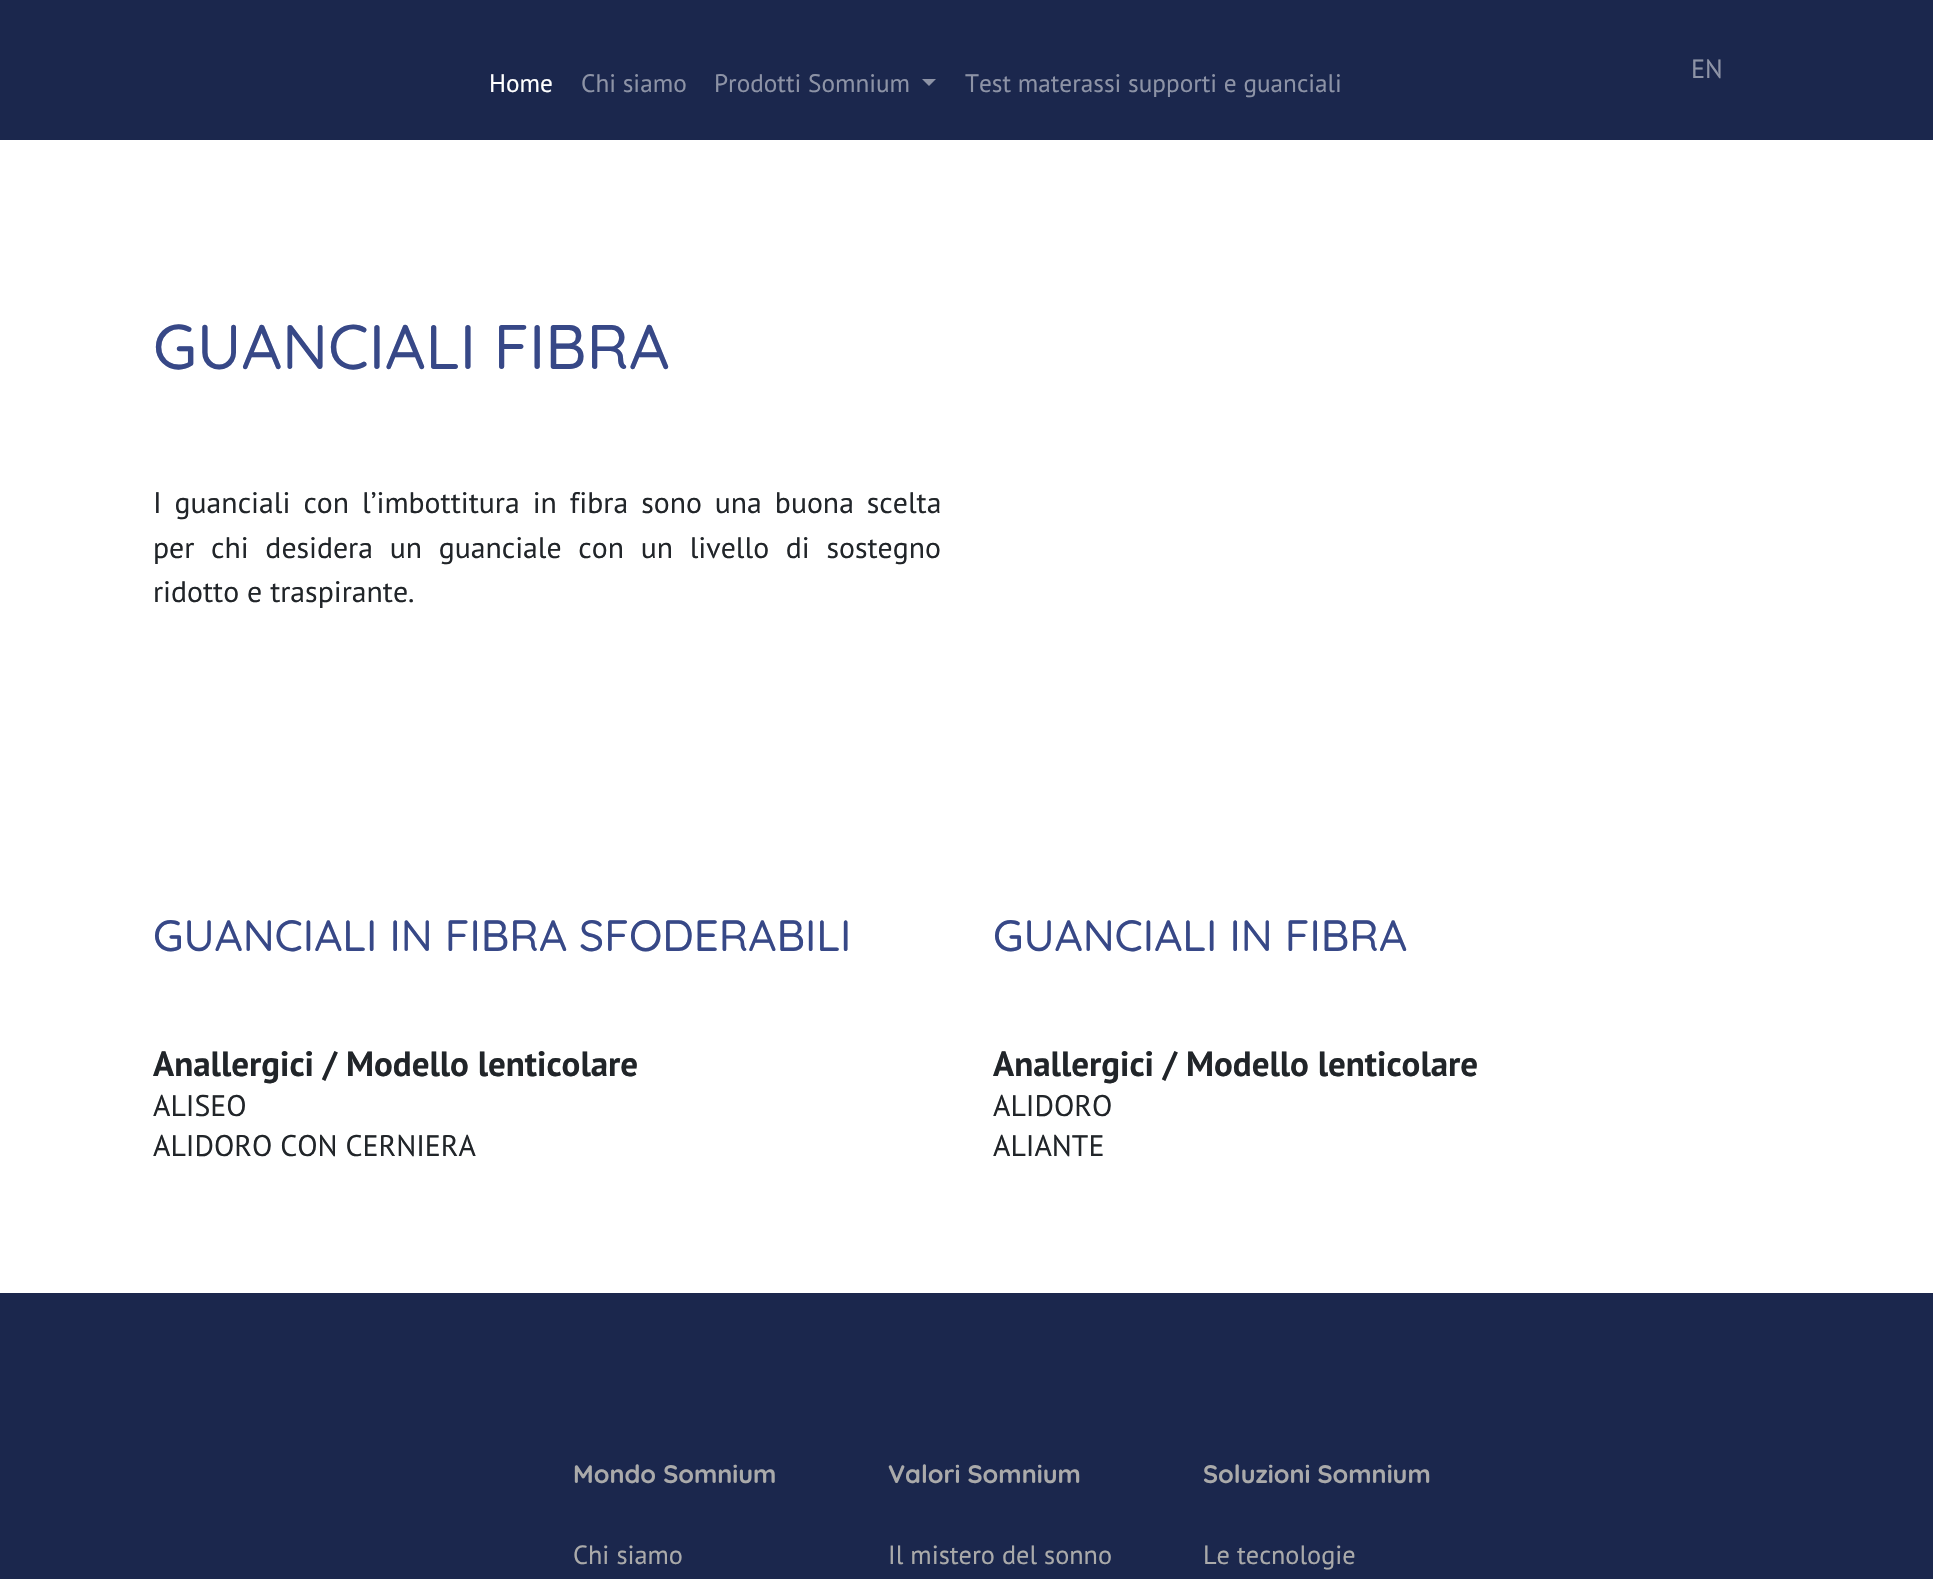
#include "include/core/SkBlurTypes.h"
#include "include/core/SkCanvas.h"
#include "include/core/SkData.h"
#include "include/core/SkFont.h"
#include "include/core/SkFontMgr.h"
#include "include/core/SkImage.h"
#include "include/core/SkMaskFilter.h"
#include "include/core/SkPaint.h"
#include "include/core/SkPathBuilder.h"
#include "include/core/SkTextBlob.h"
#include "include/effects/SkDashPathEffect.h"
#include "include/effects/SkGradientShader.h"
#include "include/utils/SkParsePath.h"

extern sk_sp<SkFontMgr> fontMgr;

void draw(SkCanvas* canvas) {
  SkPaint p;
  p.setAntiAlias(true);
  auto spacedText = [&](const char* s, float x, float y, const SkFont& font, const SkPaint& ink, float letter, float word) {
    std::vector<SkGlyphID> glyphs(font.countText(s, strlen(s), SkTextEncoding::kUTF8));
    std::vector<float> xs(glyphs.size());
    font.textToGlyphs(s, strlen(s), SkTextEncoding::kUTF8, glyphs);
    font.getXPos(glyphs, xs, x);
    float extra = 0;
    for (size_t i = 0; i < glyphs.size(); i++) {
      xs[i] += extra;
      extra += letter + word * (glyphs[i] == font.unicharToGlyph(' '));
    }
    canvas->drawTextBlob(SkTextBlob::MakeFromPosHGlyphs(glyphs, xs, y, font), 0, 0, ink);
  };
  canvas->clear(SK_ColorWHITE);
  p.setColor(SkColorSetRGB(27, 39, 77));
  canvas->drawRect(SkRect::MakeLTRB(0, 0, 1933, 140), p);
  p.setColor(SkColorSetRGB(141, 147, 166));
  canvas->drawPath(SkPathBuilder().moveTo(922, 79).lineTo(936, 79).lineTo(929, 86).close().detach(), p);
  p.setColor(SkColorSetRGB(27, 39, 77));
  canvas->drawRect(SkRect::MakeLTRB(0, 1293, 1933, 1579), p);
  SkFont font1(fontMgr->matchFamilyStyle("PT Sans", SkFontStyle::Normal()), 26.25f);
  font1.setSubpixel(true);
  p.setColor(SkColorSetRGB(141, 147, 166));
  canvas->drawString("EN", 1691, 78, font1, p);
  SkFont font2(fontMgr->matchFamilyStyle("PT Sans", SkFontStyle::Normal()), 25.25f);
  font2.setSubpixel(true);
  p.setColor(SK_ColorWHITE);
  canvas->drawString("Home", 489, 92, font2, p);
  p.setColor(SkColorSetRGB(141, 147, 166));
  canvas->drawString("Chi siamo", 581, 92, font2, p);
  canvas->drawString("Prodotti Somnium", 714, 92, font2, p);
  canvas->drawString("Test materassi supporti e guanciali", 965, 92, font2, p);
  SkFont font3(fontMgr->matchFamilyStyle("Quicksand", SkFontStyle(500, SkFontStyle::kNormal_Width, SkFontStyle::kUpright_Slant)), 63);
  font3.setSubpixel(true);
  p.setColor(SkColorSetRGB(55, 72, 135));
  canvas->drawString("GUANCIALI FIBRA", 153, 369, font3, p);
  SkFont font4(fontMgr->matchFamilyStyle("PT Sans", SkFontStyle::Normal()), 29.75f);
  font4.setSubpixel(true);
  p.setColor(SkColorSetRGB(33, 37, 41));
  spacedText("I guanciali con l’imbottitura in fibra sono una buona scelta", 153, 513, font4, p, 0, 5);
  spacedText("per chi desidera un guanciale con un livello di sostegno", 153, 558, font4, p, 0, 8.75f);
  canvas->drawString("ridotto e traspirante.", 153, 602, font4, p);
  SkFont font5(fontMgr->matchFamilyStyle("Quicksand", SkFontStyle(500, SkFontStyle::kNormal_Width, SkFontStyle::kUpright_Slant)), 43.75f);
  font5.setSubpixel(true);
  p.setColor(SkColorSetRGB(55, 72, 135));
  canvas->drawString("GUANCIALI IN FIBRA SFODERABILI", 153, 951, font5, p);
  canvas->drawString("GUANCIALI IN FIBRA", 993, 951, font5, p);
  SkFont font6(fontMgr->matchFamilyStyle("PT Sans", SkFontStyle::Bold()), 35);
  font6.setSubpixel(true);
  p.setColor(SkColorSetRGB(33, 37, 41));
  canvas->drawString("Anallergici / Modello lenticolare", 153, 1076, font6, p);
  canvas->drawString("ALISEO", 153, 1116, font4, p);
  canvas->drawString("ALIDORO CON CERNIERA", 153, 1156, font4, p);
  canvas->drawString("Anallergici / Modello lenticolare", 993, 1076, font6, p);
  canvas->drawString("ALIDORO", 993, 1116, font4, p);
  canvas->drawString("ALIANTE", 993, 1156, font4, p);
  SkFont font7(fontMgr->matchFamilyStyle("Quicksand", SkFontStyle::Bold()), 25.25f);
  font7.setSubpixel(true);
  p.setColor(SkColorSetRGB(170, 170, 170));
  canvas->drawString("Mondo Somnium", 573, 1483, font7, p);
  canvas->drawString("Chi siamo", 573, 1564, font1, p);
  canvas->drawString("Valori Somnium", 888, 1483, font7, p);
  canvas->drawString("Il mistero del sonno", 888, 1564, font1, p);
  canvas->drawString("Soluzioni Somnium", 1203, 1483, font7, p);
  canvas->drawString("Le tecnologie", 1203, 1564, font1, p);
}
